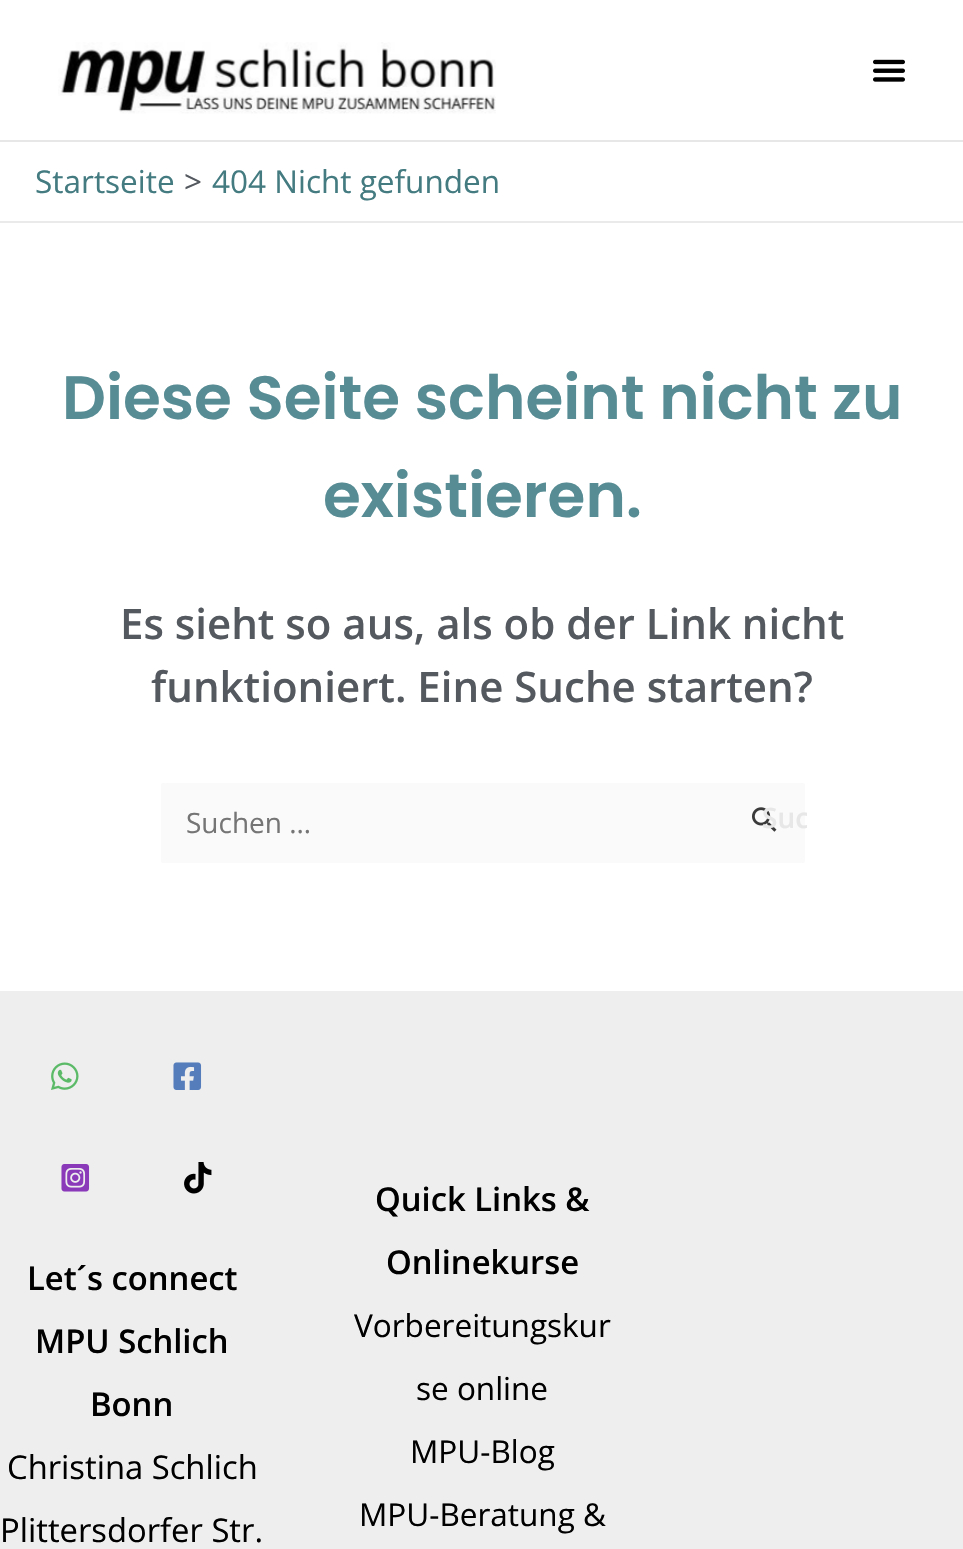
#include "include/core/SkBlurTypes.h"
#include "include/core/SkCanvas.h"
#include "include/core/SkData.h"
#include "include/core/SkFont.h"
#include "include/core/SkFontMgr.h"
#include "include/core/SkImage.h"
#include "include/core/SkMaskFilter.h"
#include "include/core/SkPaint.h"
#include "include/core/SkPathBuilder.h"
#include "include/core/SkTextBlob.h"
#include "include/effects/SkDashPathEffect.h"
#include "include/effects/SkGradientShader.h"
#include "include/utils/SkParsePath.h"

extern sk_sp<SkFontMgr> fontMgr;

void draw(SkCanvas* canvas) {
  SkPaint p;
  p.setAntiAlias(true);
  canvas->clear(SK_ColorWHITE);
  p.setColor(SkColorSetRGB(231, 231, 231));
  canvas->drawRect(SkRect::MakeLTRB(0, 140, 963, 142), p);
  canvas->drawImageRect(SkImages::DeferredFromEncodedData(SkData::MakeFromFileName("images/1.png")), SkRect::MakeLTRB(58, 42, 496, 114), SkSamplingOptions());
  canvas->drawImageRect(SkImages::DeferredFromEncodedData(SkData::MakeFromFileName("images/2.png")), SkRect::MakeLTRB(873, 59, 905, 82), SkSamplingOptions());
  p.setColor(SkColorSetRGB(234, 234, 234));
  canvas->drawRect(SkRect::MakeLTRB(0, 221, 963, 223), p);
  p.setColor(SkColorSetRGB(250, 250, 250));
  canvas->drawRoundRect(SkRect::MakeLTRB(160, 782, 806, 864), 3, 3, p);
  p.setStyle(SkPaint::kStroke_Style);
  p.setStrokeWidth(2);
  p.setColor(SK_ColorWHITE);
  canvas->drawRoundRect(SkRect::MakeLTRB(160, 782, 806, 864), 3, 3, p);
  canvas->drawImageRect(SkImages::DeferredFromEncodedData(SkData::MakeFromFileName("images/3.png")), SkRect::MakeLTRB(752, 807, 777, 832), SkSamplingOptions());
  p.setStyle(SkPaint::kFill_Style);
  p.setColor(SkColorSetRGB(238, 238, 238));
  canvas->drawRect(SkRect::MakeLTRB(0, 991, 963, 1549), p);
  canvas->drawImageRect(SkImages::DeferredFromEncodedData(SkData::MakeFromFileName("images/4.png")), SkRect::MakeLTRB(51, 1062, 79, 1090), SkSamplingOptions());
  canvas->drawImageRect(SkImages::DeferredFromEncodedData(SkData::MakeFromFileName("images/5.png")), SkRect::MakeLTRB(173, 1062, 202, 1090), SkSamplingOptions());
  canvas->drawImageRect(SkImages::DeferredFromEncodedData(SkData::MakeFromFileName("images/6.png")), SkRect::MakeLTRB(61, 1164, 90, 1192), SkSamplingOptions());
  canvas->drawImageRect(SkImages::DeferredFromEncodedData(SkData::MakeFromFileName("images/7.png")), SkRect::MakeLTRB(184, 1162, 212, 1194), SkSamplingOptions());
  SkFont font1(fontMgr->matchFamilyStyle("Open Sans", SkFontStyle::Normal()), 31.5f);
  font1.setSubpixel(true);
  p.setColor(SkColorSetRGB(67, 123, 129));
  canvas->drawString("Startseite", 35, 193, font1, p);
  p.setColor(SkColorSetRGB(84, 89, 95));
  canvas->drawString(">", 184, 193, font1, p);
  p.setColor(SkColorSetRGB(67, 123, 129));
  canvas->drawString("404 Nicht gefunden", 212, 193, font1, p);
  SkFont font2(fontMgr->matchFamilyStyle("Poppins", SkFontStyle(600, SkFontStyle::kNormal_Width, SkFontStyle::kUpright_Slant)), 61.25f);
  font2.setSubpixel(true);
  p.setColor(SkColorSetRGB(87, 140, 148));
  canvas->drawString("Diese Seite scheint nicht zu", 62, 419, font2, p);
  canvas->drawString("existieren.", 323, 517, font2, p);
  SkFont font3(fontMgr->matchFamilyStyle("Open Sans", SkFontStyle(600, SkFontStyle::kNormal_Width, SkFontStyle::kUpright_Slant)), 42);
  font3.setSubpixel(true);
  p.setColor(SkColorSetRGB(84, 89, 95));
  canvas->drawString("Es sieht so aus, als ob der Link nicht", 120, 639, font3, p);
  canvas->drawString("funktioniert. Eine Suche starten?", 151, 702, font3, p);
  SkFont font4(fontMgr->matchFamilyStyle("Open Sans", SkFontStyle::Normal()), 28);
  font4.setSubpixel(true);
  p.setColor(SkColorSetRGB(117, 117, 117));
  canvas->drawString("Suchen …", 186, 833, font4, p);
  canvas->save();
  canvas->clipPath(SkPathBuilder().moveTo(732, 781).lineTo(803, 781).cubicTo(805, 781, 807, 783, 807, 785).lineTo(807, 850).cubicTo(807, 852, 805, 854, 803, 854).lineTo(732, 854).cubicTo(730, 854, 728, 852, 728, 850).lineTo(728, 785).cubicTo(728, 783, 730, 781, 732, 781).close().detach(), true);
  SkFont font5(fontMgr->matchFamilyStyle("Open Sans", SkFontStyle(600, SkFontStyle::kNormal_Width, SkFontStyle::kUpright_Slant)), 28);
  font5.setSubpixel(true);
  p.setColor(SkColorSetRGB(231, 231, 231));
  canvas->drawString("Suc", 762, 828, font5, p);
  canvas->restore();
  SkFont font6(fontMgr->matchFamilyStyle("Open Sans", SkFontStyle(600, SkFontStyle::kNormal_Width, SkFontStyle::kUpright_Slant)), 32.75f);
  font6.setSubpixel(true);
  p.setColor(SK_ColorBLACK);
  canvas->drawString("Let´s connect", 27, 1290, font6, p);
  canvas->drawString("MPU Schlich", 35, 1353, font6, p);
  canvas->drawString("Bonn", 90, 1416, font6, p);
  SkFont font7(fontMgr->matchFamilyStyle("Open Sans", SkFontStyle::Normal()), 32.75f);
  font7.setSubpixel(true);
  canvas->drawString("Christina Schlich", 7, 1479, font7, p);
  canvas->drawString("Plittersdorfer Str.", 0, 1542, font7, p);
  canvas->drawString("Quick Links &", 375, 1211, font6, p);
  canvas->drawString("Onlinekurse", 386, 1274, font6, p);
  canvas->drawString("Vorbereitungskur", 354, 1337, font1, p);
  canvas->drawString("se online", 416, 1400, font1, p);
  canvas->drawString("MPU-Blog", 410, 1463, font1, p);
  canvas->drawString("MPU-Beratung &", 359, 1526, font1, p);
}
